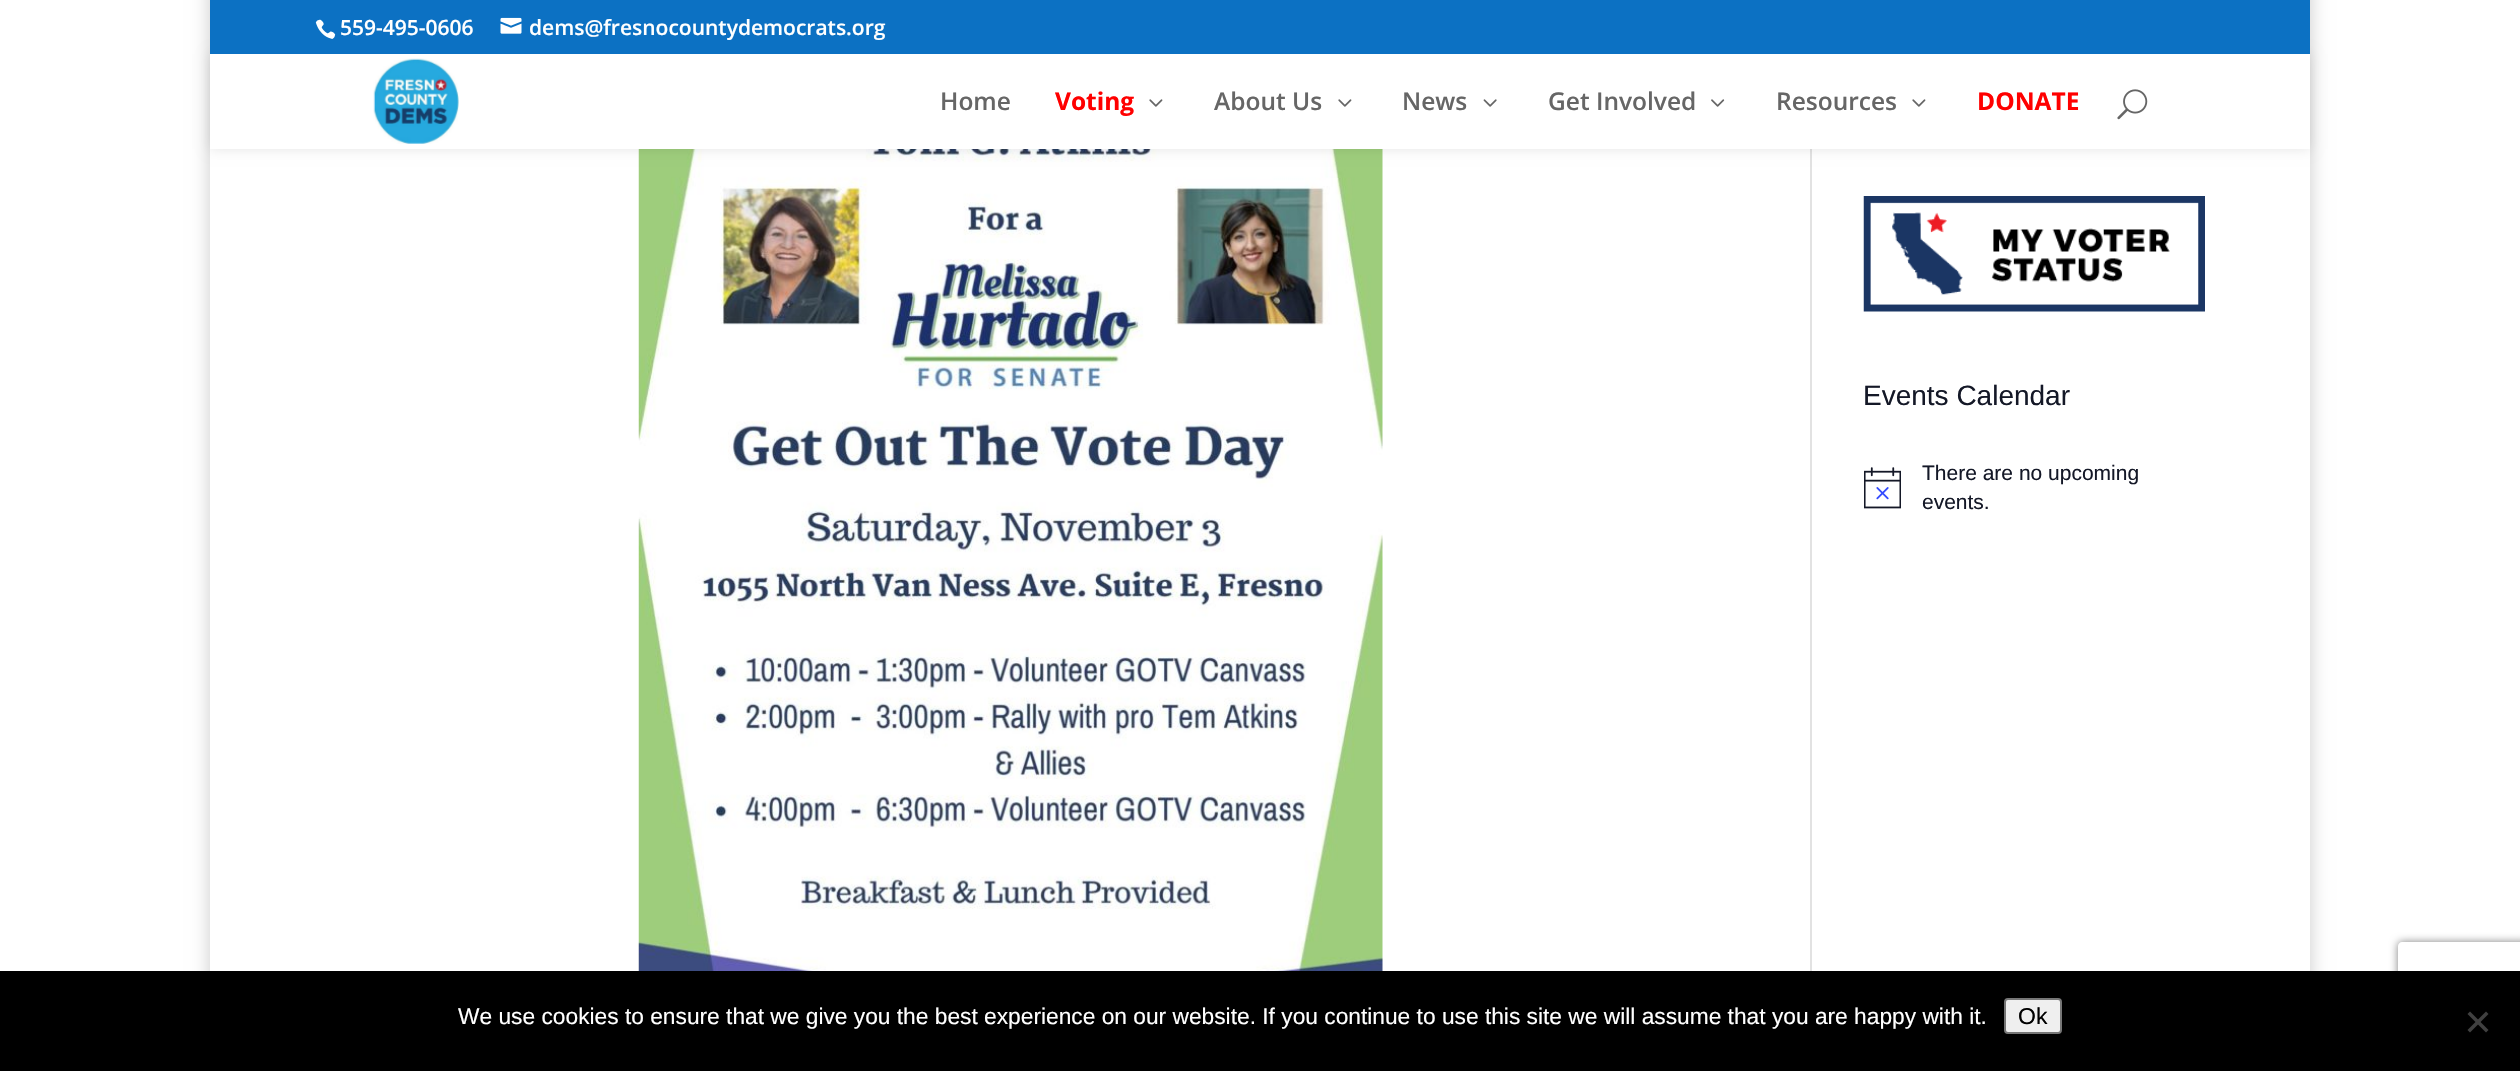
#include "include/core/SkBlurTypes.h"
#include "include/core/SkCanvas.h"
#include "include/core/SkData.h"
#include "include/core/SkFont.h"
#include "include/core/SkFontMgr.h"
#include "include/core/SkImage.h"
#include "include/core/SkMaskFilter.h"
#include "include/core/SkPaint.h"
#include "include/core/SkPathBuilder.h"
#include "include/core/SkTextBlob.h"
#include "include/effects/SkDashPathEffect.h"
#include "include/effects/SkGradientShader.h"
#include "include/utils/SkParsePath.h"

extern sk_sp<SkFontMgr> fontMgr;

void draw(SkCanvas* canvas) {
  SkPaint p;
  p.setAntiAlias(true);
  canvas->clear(SK_ColorWHITE);
  canvas->save();
  canvas->clipPath(SkPathBuilder(SkPathFillType::kEvenOdd).moveTo(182, 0).lineTo(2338, 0).lineTo(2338, 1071).lineTo(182, 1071).close().moveTo(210, -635).lineTo(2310, -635).lineTo(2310, 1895).lineTo(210, 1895).close().detach(), true);
  p.setColor(SkColorSetARGB(51, 0, 0, 0));
  p.setMaskFilter(SkMaskFilter::MakeBlur(kNormal_SkBlurStyle, 9));
  canvas->drawRect(SkRect::MakeLTRB(210, -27, 2310, 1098), p);
  p.setMaskFilter(nullptr);
  canvas->restore();
  p.setColor(SkColorSetRGB(226, 226, 226));
  canvas->drawRect(SkRect::MakeLTRB(1810, 149, 1812, 971), p);
  canvas->drawImageRect(SkImages::DeferredFromEncodedData(SkData::MakeFromFileName("images/8.png")), SkRect::MakeLTRB(638, 149, 1383, 971), SkSamplingOptions());
  p.setColor(SkColorSetARGB(26, 0, 0, 0));
  p.setMaskFilter(SkMaskFilter::MakeBlur(kNormal_SkBlurStyle, 6));
  canvas->drawRect(SkRect::MakeLTRB(210, 54, 2310, 149), p);
  p.setMaskFilter(nullptr);
  p.setColor(SkColorSetRGB(12, 113, 195));
  canvas->drawRect(SkRect::MakeLTRB(210, 0, 2310, 54), p);
  canvas->drawImageRect(SkImages::DeferredFromEncodedData(SkData::MakeFromFileName("images/1.png")), SkRect::MakeLTRB(315, 19, 336, 39), SkSamplingOptions());
  canvas->drawImageRect(SkImages::DeferredFromEncodedData(SkData::MakeFromFileName("images/2.png")), SkRect::MakeLTRB(500, 17, 522, 34), SkSamplingOptions());
  p.setColor(SK_ColorWHITE);
  canvas->drawRect(SkRect::MakeLTRB(210, 54, 2310, 149), p);
  canvas->drawImageRect(SkImages::DeferredFromEncodedData(SkData::MakeFromFileName("images/3.png")), SkRect::MakeLTRB(373, 58, 459, 144), SkSamplingOptions());
  canvas->drawImageRect(SkImages::DeferredFromEncodedData(SkData::MakeFromFileName("images/4.png")), SkRect::MakeLTRB(1149, 99, 1163, 107), SkSamplingOptions());
  canvas->drawImageRect(SkImages::DeferredFromEncodedData(SkData::MakeFromFileName("images/4.png")), SkRect::MakeLTRB(1338, 99, 1352, 107), SkSamplingOptions());
  canvas->drawImageRect(SkImages::DeferredFromEncodedData(SkData::MakeFromFileName("images/5.png")), SkRect::MakeLTRB(1483, 99, 1497, 107), SkSamplingOptions());
  canvas->drawImageRect(SkImages::DeferredFromEncodedData(SkData::MakeFromFileName("images/6.png")), SkRect::MakeLTRB(1711, 99, 1725, 107), SkSamplingOptions());
  canvas->drawImageRect(SkImages::DeferredFromEncodedData(SkData::MakeFromFileName("images/4.png")), SkRect::MakeLTRB(1912, 99, 1926, 107), SkSamplingOptions());
  canvas->drawImageRect(SkImages::DeferredFromEncodedData(SkData::MakeFromFileName("images/7.png")), SkRect::MakeLTRB(2117, 89, 2148, 120), SkSamplingOptions());
  canvas->drawImageRect(SkImages::DeferredFromEncodedData(SkData::MakeFromFileName("images/9.png")), SkRect::MakeLTRB(1863, 196, 2205, 312), SkSamplingOptions());
  canvas->drawImageRect(SkImages::DeferredFromEncodedData(SkData::MakeFromFileName("images/10.png")), SkRect::MakeLTRB(1864, 467, 1901, 509), SkSamplingOptions());
  canvas->save();
  canvas->clipPath(SkPathBuilder(SkPathFillType::kEvenOdd).moveTo(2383, 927).lineTo(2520, 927).lineTo(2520, 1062).lineTo(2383, 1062).close().moveTo(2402, 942).lineTo(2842, 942).cubicTo(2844, 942, 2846, 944, 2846, 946).lineTo(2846, 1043).cubicTo(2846, 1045, 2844, 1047, 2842, 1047).lineTo(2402, 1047).cubicTo(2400, 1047, 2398, 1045, 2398, 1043).lineTo(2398, 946).cubicTo(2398, 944, 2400, 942, 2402, 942).close().detach(), true);
  p.setColor(SkColorSetRGB(128, 128, 128));
  p.setMaskFilter(SkMaskFilter::MakeBlur(kNormal_SkBlurStyle, 4.5f));
  canvas->drawRoundRect(SkRect::MakeLTRB(2398, 942, 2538, 1047), 4, 4, p);
  p.setMaskFilter(nullptr);
  canvas->restore();
  p.setColor(SK_ColorBLACK);
  canvas->drawRect(SkRect::MakeLTRB(0, 971, 2520, 1071), p);
  p.setColor(SkColorSetRGB(239, 239, 239));
  canvas->drawRoundRect(SkRect::MakeLTRB(2005, 999, 2061, 1033), 3, 3, p);
  p.setStyle(SkPaint::kStroke_Style);
  p.setStrokeWidth(2);
  p.setColor(SkColorSetRGB(118, 118, 118));
  canvas->drawRoundRect(SkRect::MakeLTRB(2005, 999, 2061, 1033), 3, 3, p);
  p.setStyle(SkPaint::kFill_Style);
  p.setColor(SkColorSetRGB(64, 64, 64));
  canvas->drawPath(SkPathBuilder().moveTo(2486, 1011.5f).lineTo(2488.5f, 1014).lineTo(2470, 1032.5f).lineTo(2467.5f, 1030).close().detach(), p);
  canvas->drawPath(SkPathBuilder().moveTo(2467.5f, 1014).lineTo(2470, 1011.5f).lineTo(2488.5f, 1030).lineTo(2486, 1032.5f).close().detach(), p);
  SkFont font1(fontMgr->matchFamilyStyle("Open Sans", SkFontStyle(600, SkFontStyle::kNormal_Width, SkFontStyle::kUpright_Slant)), 21);
  font1.setSubpixel(true);
  p.setColor(SK_ColorWHITE);
  canvas->drawString("559-495-0606", 340, 35, font1, p);
  canvas->drawString("dems@fresnocountydemocrats.org", 529, 35, font1, p);
  SkFont font2(fontMgr->matchFamilyStyle("Open Sans", SkFontStyle(600, SkFontStyle::kNormal_Width, SkFontStyle::kUpright_Slant)), 24.5f);
  font2.setSubpixel(true);
  p.setColor(SkColorSetRGB(102, 102, 102));
  canvas->drawString("Home", 940, 110, font2, p);
  SkFont font3(fontMgr->matchFamilyStyle("Open Sans", SkFontStyle::Bold()), 24.5f);
  font3.setSubpixel(true);
  p.setColor(SkColorSetRGB(255, 0, 0));
  canvas->drawString("Voting", 1055, 110, font3, p);
  p.setColor(SkColorSetRGB(102, 102, 102));
  canvas->drawString("About Us", 1214, 110, font2, p);
  canvas->drawString("News", 1402, 110, font2, p);
  canvas->drawString("Get Involved", 1548, 110, font2, p);
  canvas->drawString("Resources", 1776, 110, font2, p);
  p.setColor(SkColorSetRGB(255, 0, 0));
  canvas->drawString("DONATE", 1977, 110, font3, p);
  SkFont font4(fontMgr->matchFamilyStyle("Liberation Sans", SkFontStyle::Normal()), 28);
  font4.setSubpixel(true);
  p.setColor(SkColorSetRGB(20, 24, 39));
  canvas->drawString("Events Calendar", 1863, 405, font4, p);
  SkFont font5(fontMgr->matchFamilyStyle("Liberation Sans", SkFontStyle::Normal()), 21);
  font5.setSubpixel(true);
  canvas->drawString("There are no upcoming", 1922, 480, font5, p);
  canvas->drawString("events.", 1922, 509, font5, p);
  SkFont font6(fontMgr->matchFamilyStyle("Liberation Sans", SkFontStyle::Normal()), 22.75f);
  font6.setSubpixel(true);
  p.setColor(SK_ColorWHITE);
  canvas->drawString("We use cookies to ensure that we give you the best experience on our website. If you continue to use this site we will assume that you are happy with it.", 458, 1024, font6, p);
  SkFont font7(fontMgr->matchFamilyStyle("Liberation Sans", SkFontStyle::Normal()), 23);
  font7.setSubpixel(true);
  p.setColor(SK_ColorBLACK);
  canvas->drawString("Ok", 2018, 1024, font7, p);
}
